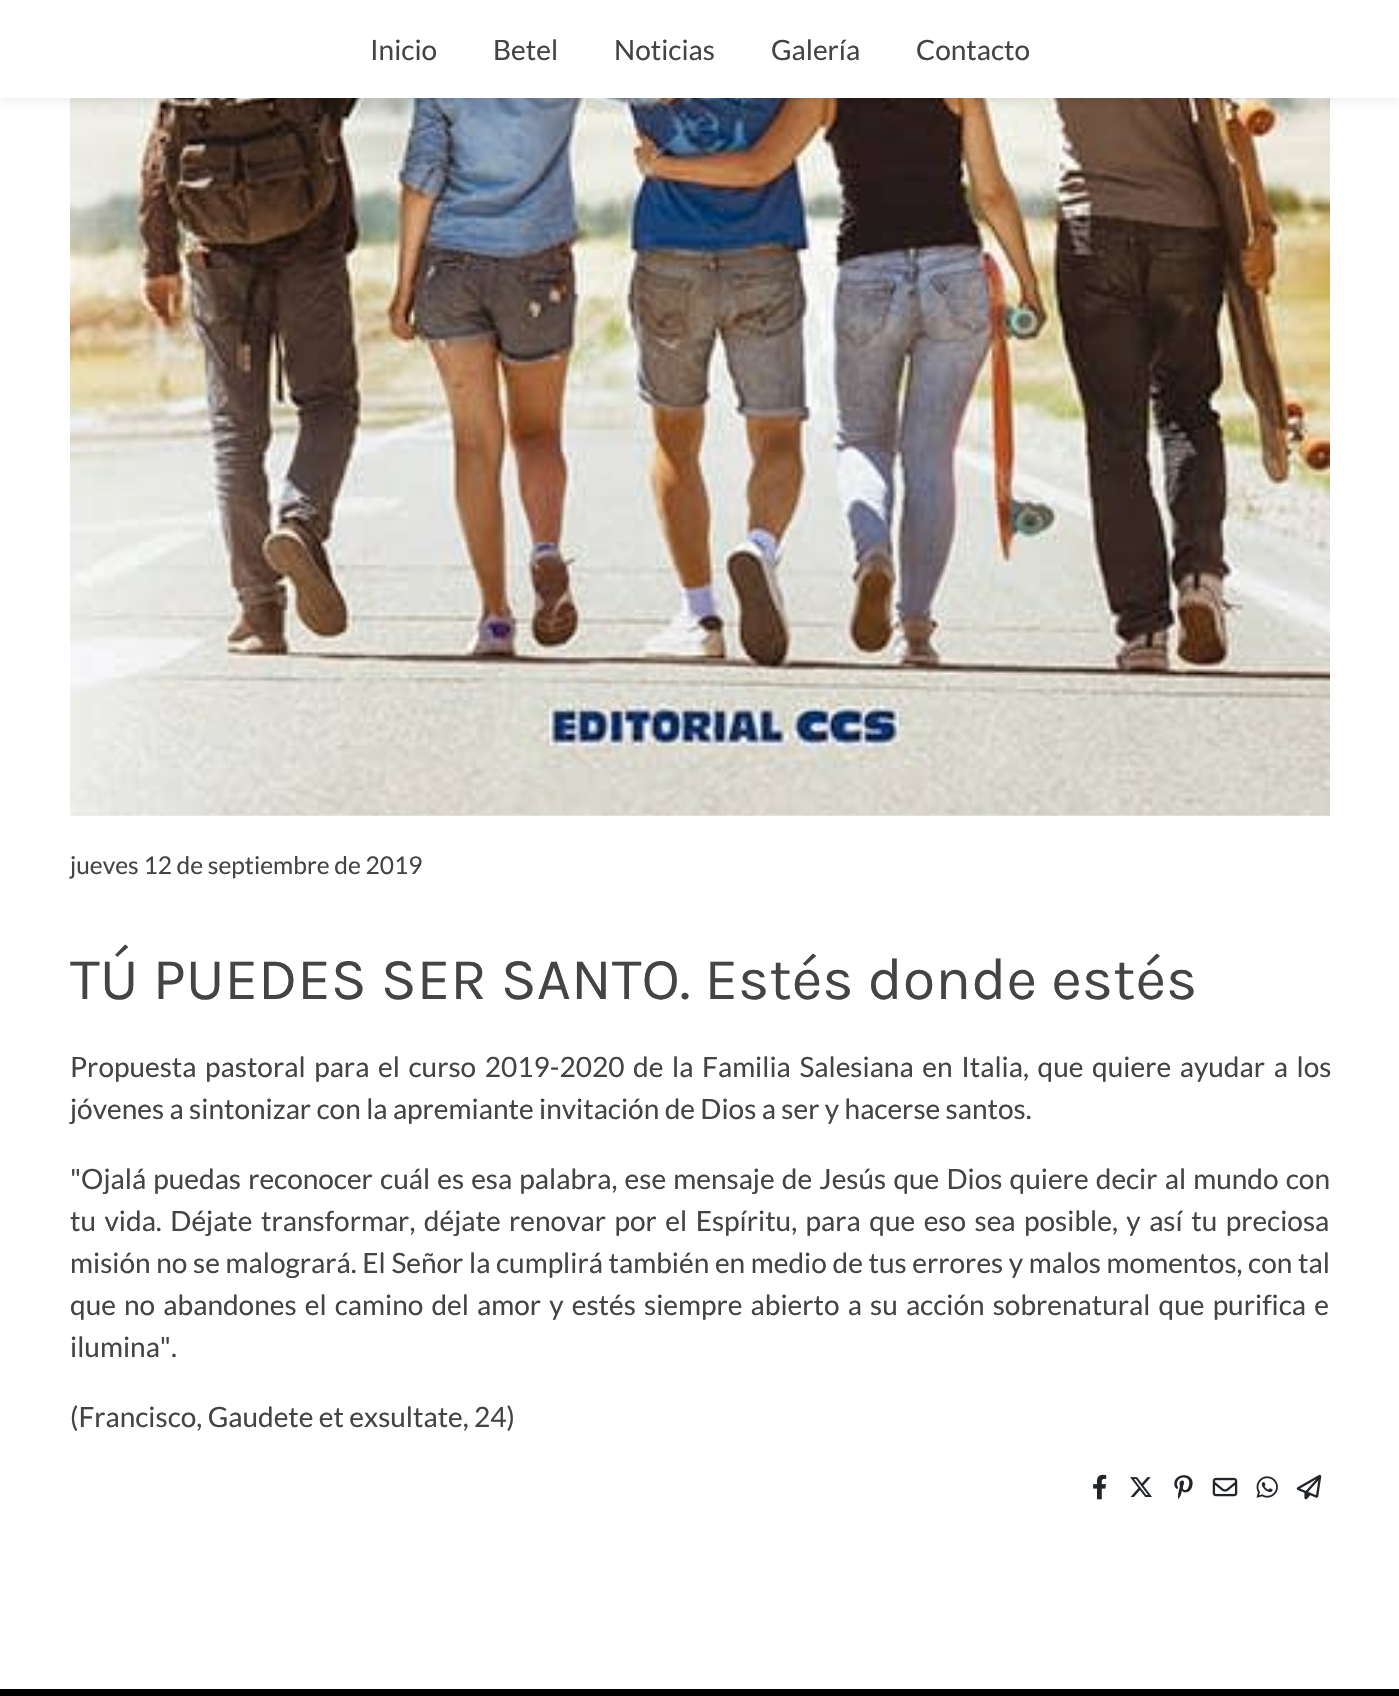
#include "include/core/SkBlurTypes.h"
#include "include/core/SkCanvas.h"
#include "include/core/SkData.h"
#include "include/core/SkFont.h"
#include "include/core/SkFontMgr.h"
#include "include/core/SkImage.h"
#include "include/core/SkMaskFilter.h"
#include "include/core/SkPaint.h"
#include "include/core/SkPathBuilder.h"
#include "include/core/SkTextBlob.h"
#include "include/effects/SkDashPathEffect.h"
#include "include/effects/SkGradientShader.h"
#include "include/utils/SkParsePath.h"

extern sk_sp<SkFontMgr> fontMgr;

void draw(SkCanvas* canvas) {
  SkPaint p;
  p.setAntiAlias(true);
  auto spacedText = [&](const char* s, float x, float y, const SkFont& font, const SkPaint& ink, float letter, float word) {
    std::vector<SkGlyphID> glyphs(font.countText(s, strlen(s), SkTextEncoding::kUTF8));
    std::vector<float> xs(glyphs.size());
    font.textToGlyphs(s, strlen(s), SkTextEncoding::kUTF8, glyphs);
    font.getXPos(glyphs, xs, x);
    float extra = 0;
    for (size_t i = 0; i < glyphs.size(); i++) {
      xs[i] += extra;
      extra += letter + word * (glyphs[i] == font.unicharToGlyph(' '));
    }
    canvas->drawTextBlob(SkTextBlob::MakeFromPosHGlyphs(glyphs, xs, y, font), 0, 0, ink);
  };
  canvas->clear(SK_ColorWHITE);
  canvas->drawImageRect(SkImages::DeferredFromEncodedData(SkData::MakeFromFileName("images/1.png")), SkRect::MakeLTRB(70, 98, 1330, 816), SkSamplingOptions());
  p.setColor(SkColorSetARGB(15, 0, 0, 0));
  p.setMaskFilter(SkMaskFilter::MakeBlur(kNormal_SkBlurStyle, 4.5f));
  canvas->drawRect(SkRect::MakeLTRB(0, 4, 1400, 102), p);
  p.setMaskFilter(nullptr);
  p.setColor(SK_ColorWHITE);
  canvas->drawRect(SkRect::MakeLTRB(0, 0, 1399, 98), p);
  canvas->drawImageRect(SkImages::DeferredFromEncodedData(SkData::MakeFromFileName("images/2.png")), SkRect::MakeLTRB(1093, 1474, 1107, 1500), SkSamplingOptions());
  canvas->drawImageRect(SkImages::DeferredFromEncodedData(SkData::MakeFromFileName("images/3.png")), SkRect::MakeLTRB(1130, 1477, 1152, 1497), SkSamplingOptions());
  canvas->drawImageRect(SkImages::DeferredFromEncodedData(SkData::MakeFromFileName("images/4.png")), SkRect::MakeLTRB(1174, 1475, 1193, 1499), SkSamplingOptions());
  canvas->drawImageRect(SkImages::DeferredFromEncodedData(SkData::MakeFromFileName("images/5.png")), SkRect::MakeLTRB(1212, 1477, 1238, 1497), SkSamplingOptions());
  canvas->drawImageRect(SkImages::DeferredFromEncodedData(SkData::MakeFromFileName("images/6.png")), SkRect::MakeLTRB(1256, 1476, 1278, 1498), SkSamplingOptions());
  canvas->drawImageRect(SkImages::DeferredFromEncodedData(SkData::MakeFromFileName("images/7.png")), SkRect::MakeLTRB(1296, 1474, 1322, 1500), SkSamplingOptions());
  {
    const SkColor colors[] = {SkColorSetRGB(34, 34, 34), SK_ColorBLACK};
    const float stops[] = {0, 1};
    const SkPoint ends[] = {{700, 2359}, {700, 1689}};
    p.setShader(SkGradientShader::MakeLinear(ends, colors, stops, 2, SkTileMode::kClamp));
    p.setAlpha(255);
  }
  canvas->drawRect(SkRect::MakeLTRB(0, 1689, 1399, 1696), p);
  SkFont font1(fontMgr->matchFamilyStyle("Lato", SkFontStyle::Normal()), 28);
  font1.setSubpixel(true);
  p.setShader(nullptr);
  p.setColor(SkColorSetRGB(68, 68, 68));
  canvas->drawString("Inicio", 370, 60, font1, p);
  canvas->drawString("Betel", 493, 60, font1, p);
  canvas->drawString("Noticias", 614, 60, font1, p);
  canvas->drawString("Galería", 771, 60, font1, p);
  canvas->drawString("Contacto", 916, 60, font1, p);
  SkFont font2(fontMgr->matchFamilyStyle("Lato", SkFontStyle::Normal()), 24.5f);
  font2.setSubpixel(true);
  canvas->drawString("jueves 12 de septiembre de 2019", 70, 874, font2, p);
  SkFont font3(fontMgr->matchFamilyStyle("Karla", SkFontStyle::Normal()), 59.5f);
  font3.setSubpixel(true);
  canvas->drawString("TÚ PUEDES SER SANTO. Estés donde estés", 70, 999, font3, p);
  spacedText("Propuesta pastoral para el curso 2019-2020 de la Familia Salesiana en Italia, que quiere ayudar a los", 70, 1077, font1, p, 0, 3.25f);
  canvas->drawString("jóvenes a sintonizar con la apremiante invitación de Dios a ser y hacerse santos.", 70, 1119, font1, p);
  spacedText("\"Ojalá puedas reconocer cuál es esa palabra, ese mensaje de Jesús que Dios quiere decir al mundo con", 70, 1189, font1, p, 0, 1.75f);
  spacedText("tu vida. Déjate transformar, déjate renovar por el Espíritu, para que eso sea posible, y así tu preciosa", 70, 1231, font1, p, 0, 3.1f);
  spacedText("misión no se malogrará. El Señor la cumplirá también en medio de tus errores y malos momentos, con tal", 70, 1273, font1, p, 0, 0.25f);
  spacedText("que no abandones el camino del amor y estés siempre abierto a su acción sobrenatural que purifica e", 70, 1315, font1, p, 0, 2.75f);
  canvas->drawString("ilumina\".", 70, 1357, font1, p);
  canvas->drawString("(Francisco, Gaudete et exsultate, 24)", 70, 1427, font1, p);
}
